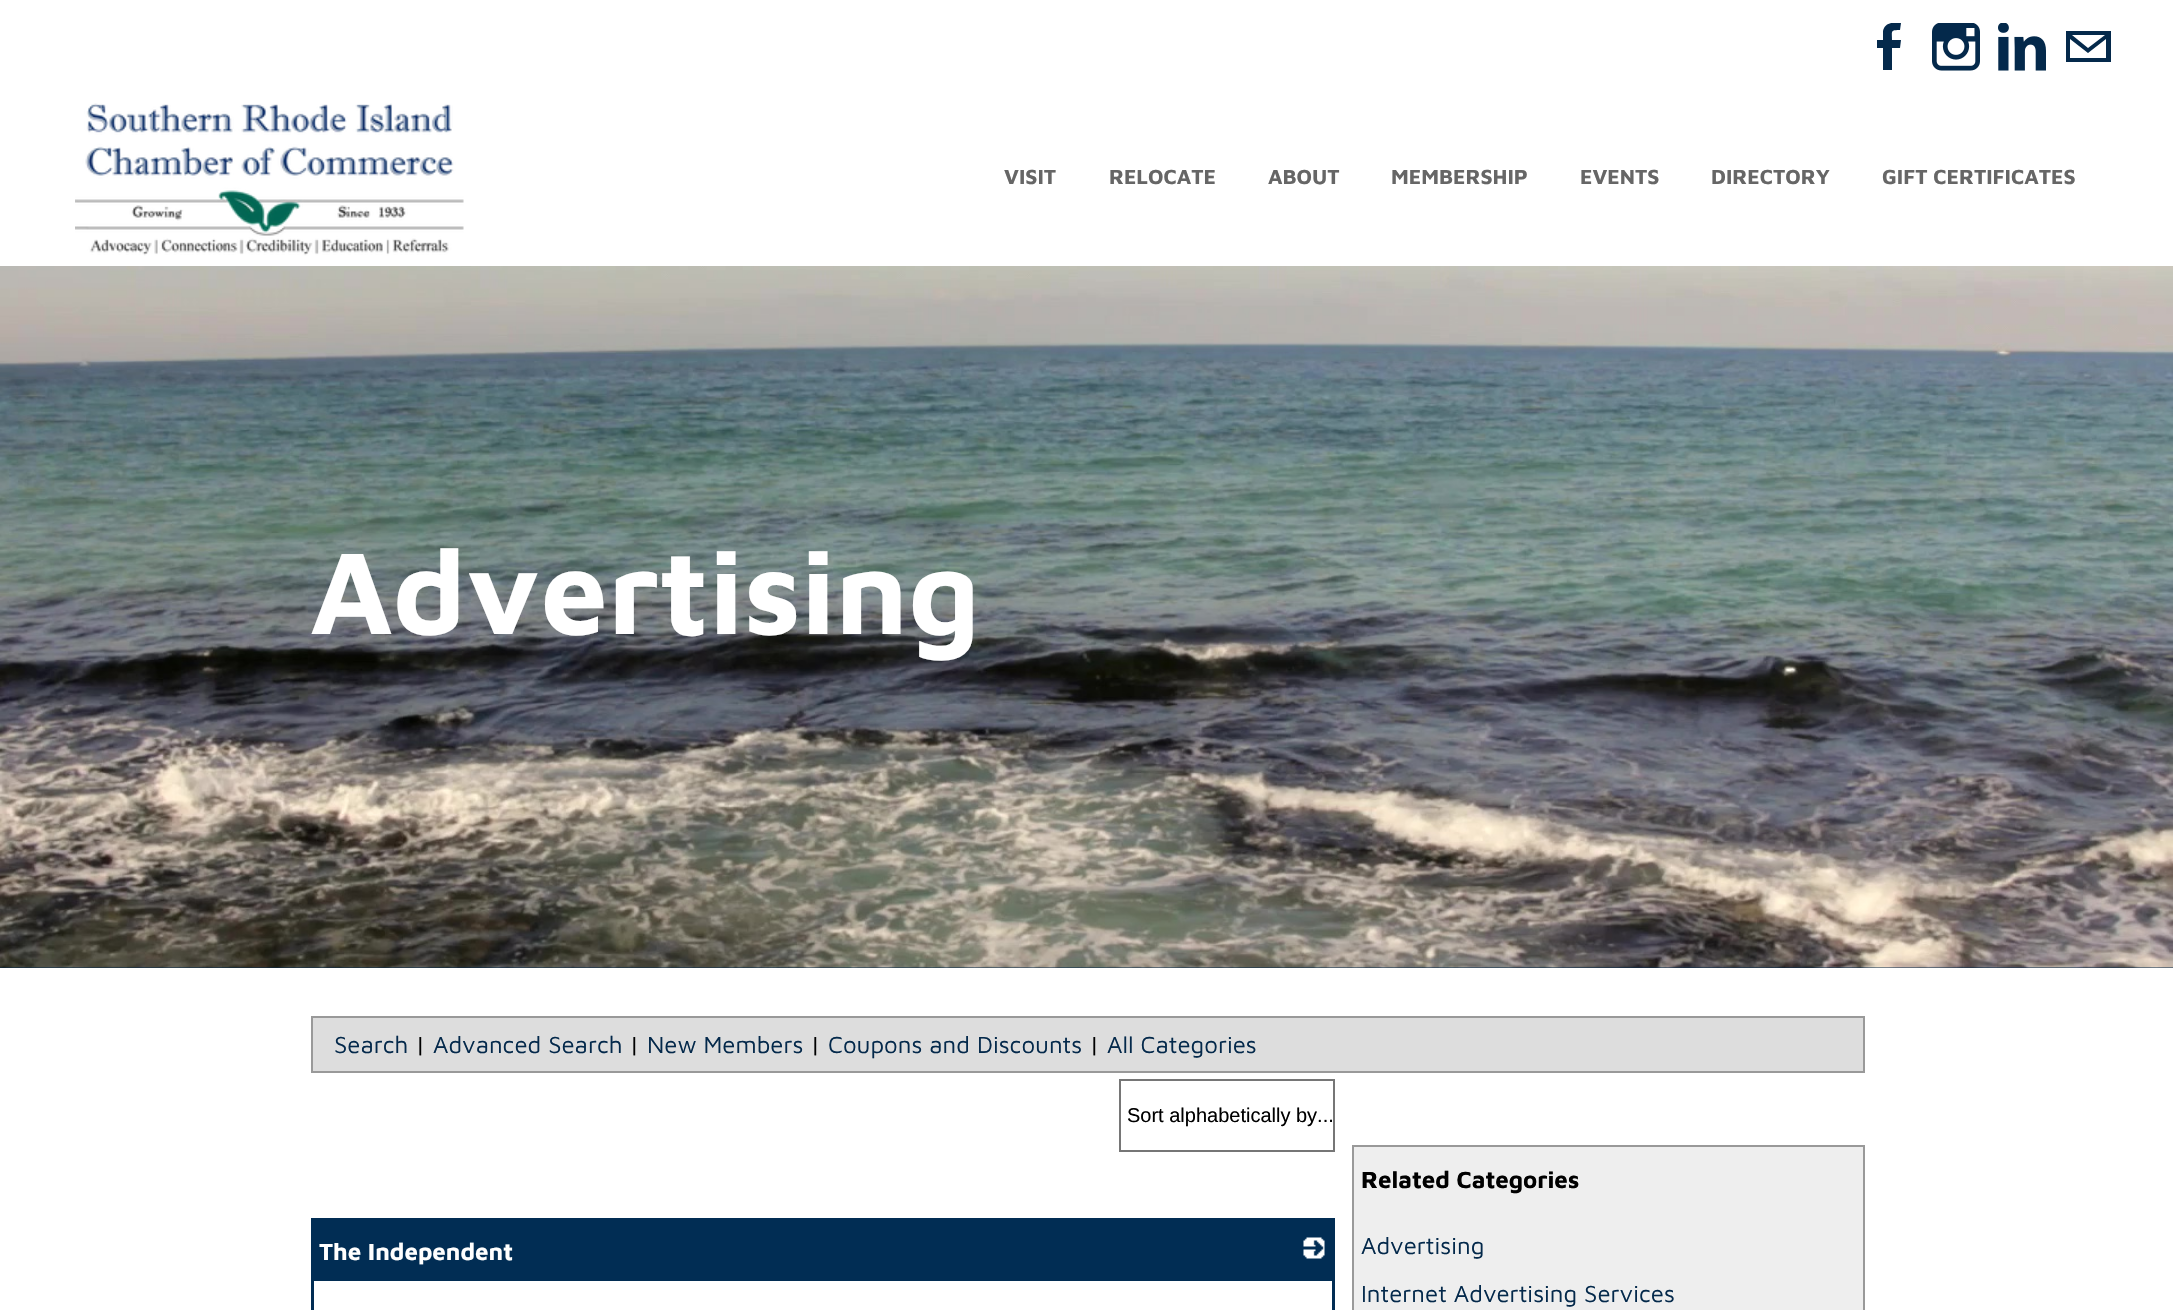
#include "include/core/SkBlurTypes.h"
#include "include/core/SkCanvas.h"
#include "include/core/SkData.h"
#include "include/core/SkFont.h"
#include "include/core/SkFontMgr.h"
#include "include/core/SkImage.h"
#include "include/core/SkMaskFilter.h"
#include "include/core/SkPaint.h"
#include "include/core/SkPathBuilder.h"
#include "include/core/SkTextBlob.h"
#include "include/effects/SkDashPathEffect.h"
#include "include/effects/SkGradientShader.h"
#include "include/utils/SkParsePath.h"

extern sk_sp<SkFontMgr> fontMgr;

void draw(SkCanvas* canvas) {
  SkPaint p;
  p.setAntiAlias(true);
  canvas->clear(SK_ColorWHITE);
  canvas->save();
  canvas->clipRect(SkRect::MakeLTRB(1820, 23, 2159, 86));
  p.setColor(SkColorSetRGB(4, 41, 75));
  canvas->drawPath(SkPathBuilder().moveTo(1883, 70).lineTo(1883, 48).lineTo(1877, 48).lineTo(1877, 40).lineTo(1883, 40).lineTo(1883, 31).cubicTo(1885, 22, 1894, 22, 1901, 23).lineTo(1900, 30).cubicTo(1890, 30, 1892, 31, 1892, 40).lineTo(1901, 40).lineTo(1900, 48).lineTo(1892, 48).lineTo(1892, 70).close().detach(), p);
  canvas->restore();
  canvas->drawImageRect(SkImages::DeferredFromEncodedData(SkData::MakeFromFileName("images/1.png")), SkRect::MakeLTRB(1932, 23, 1980, 71), SkSamplingOptions());
  canvas->drawImageRect(SkImages::DeferredFromEncodedData(SkData::MakeFromFileName("images/2.png")), SkRect::MakeLTRB(1998, 23, 2046, 71), SkSamplingOptions());
  canvas->drawPath(SkPathBuilder().moveTo(2066, 31).lineTo(2066, 62).lineTo(2111, 62).lineTo(2111, 31).close().moveTo(2105, 35).lineTo(2088, 48).lineTo(2072, 35).close().moveTo(2106, 58).lineTo(2070, 58).lineTo(2070, 39).lineTo(2088, 53).lineTo(2106, 39).close().detach(), p);
  canvas->drawImageRect(SkImages::DeferredFromEncodedData(SkData::MakeFromFileName("images/3.png")), SkRect::MakeLTRB(75, 103, 464, 256), SkSamplingOptions());
  canvas->drawRect(SkRect::MakeLTRB(0, 967, 2173, 968), p);
  canvas->drawImageRect(SkImages::DeferredFromEncodedData(SkData::MakeFromFileName("images/4.png")), SkRect::MakeLTRB(0, 266, 2173, 968), SkSamplingOptions());
  p.setColor(SkColorSetRGB(221, 221, 221));
  canvas->drawRect(SkRect::MakeLTRB(312, 1017, 1864, 1072), p);
  p.setStyle(SkPaint::kStroke_Style);
  p.setStrokeWidth(2);
  p.setColor(SkColorSetRGB(153, 153, 153));
  canvas->drawRect(SkRect::MakeLTRB(312, 1017, 1864, 1072), p);
  p.setColor(SkColorSetRGB(118, 118, 118));
  canvas->drawRect(SkRect::MakeLTRB(1120, 1080, 1334, 1151), p);
  p.setStrokeWidth(3);
  p.setColor(SkColorSetRGB(1, 45, 84));
  canvas->drawRect(SkRect::MakeLTRB(312.5f, 1219.5f, 1333.5f, 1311.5f), p);
  p.setStyle(SkPaint::kFill_Style);
  canvas->drawRect(SkRect::MakeLTRB(314, 1221, 1332, 1281), p);
  canvas->drawImageRect(SkImages::DeferredFromEncodedData(SkData::MakeFromFileName("images/5.png")), SkRect::MakeLTRB(1303, 1237, 1325, 1259), SkSamplingOptions());
  p.setColor(SkColorSetRGB(238, 238, 238));
  canvas->drawRect(SkRect::MakeLTRB(1353, 1146, 1864, 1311), p);
  p.setStyle(SkPaint::kStroke_Style);
  p.setStrokeWidth(2);
  p.setColor(SkColorSetRGB(153, 153, 153));
  canvas->drawRect(SkRect::MakeLTRB(1353, 1146, 1864, 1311), p);
  SkFont font1(fontMgr->matchFamilyStyle("Maven Pro", SkFontStyle::Bold()), 21);
  font1.setSubpixel(true);
  p.setStyle(SkPaint::kFill_Style);
  p.setColor(SkColorSetRGB(102, 102, 102));
  canvas->drawString("VISIT", 1004, 184, font1, p);
  canvas->drawString("RELOCATE", 1109, 184, font1, p);
  canvas->drawString("ABOUT", 1268, 184, font1, p);
  canvas->drawString("MEMBERSHIP", 1391, 184, font1, p);
  canvas->drawString("EVENTS", 1580, 184, font1, p);
  canvas->drawString("DIRECTORY", 1711, 184, font1, p);
  canvas->drawString("GIFT CERTIFICATES", 1882, 184, font1, p);
  SkFont font2(fontMgr->matchFamilyStyle("Maven Pro", SkFontStyle::Bold()), 120);
  font2.setSubpixel(true);
  p.setColor(SK_ColorWHITE);
  canvas->drawString("Advertising", 310, 634, font2, p);
  SkFont font3(fontMgr->matchFamilyStyle("Maven Pro", SkFontStyle::Normal()), 24);
  font3.setSubpixel(true);
  p.setColor(SkColorSetRGB(4, 41, 75));
  canvas->drawString("Search", 334, 1053, font3, p);
  p.setColor(SK_ColorBLACK);
  canvas->drawString("|", 415, 1053, font3, p);
  p.setColor(SkColorSetRGB(4, 41, 75));
  canvas->drawString("Advanced Search", 433, 1053, font3, p);
  p.setColor(SK_ColorBLACK);
  canvas->drawString("|", 629, 1053, font3, p);
  p.setColor(SkColorSetRGB(4, 41, 75));
  canvas->drawString("New Members", 647, 1053, font3, p);
  p.setColor(SK_ColorBLACK);
  canvas->drawString("|", 810, 1053, font3, p);
  p.setColor(SkColorSetRGB(4, 41, 75));
  canvas->drawString("Coupons and Discounts", 828, 1053, font3, p);
  p.setColor(SK_ColorBLACK);
  canvas->drawString("|", 1089, 1053, font3, p);
  p.setColor(SkColorSetRGB(4, 41, 75));
  canvas->drawString("All Categories", 1107, 1053, font3, p);
  SkFont font4(fontMgr->matchFamilyStyle("Liberation Sans", SkFontStyle::Normal()), 20);
  font4.setSubpixel(true);
  p.setColor(SK_ColorBLACK);
  canvas->drawString("Sort alphabetically by...", 1127, 1122, font4, p);
  SkFont font5(fontMgr->matchFamilyStyle("Maven Pro", SkFontStyle::Bold()), 24);
  font5.setSubpixel(true);
  p.setColor(SK_ColorWHITE);
  canvas->drawString("The Independent", 319, 1260, font5, p);
  p.setColor(SK_ColorBLACK);
  canvas->drawString("Related Categories", 1361, 1188, font5, p);
  p.setColor(SkColorSetRGB(4, 41, 75));
  canvas->drawString("Advertising", 1361, 1254, font3, p);
  canvas->drawString("Internet Advertising Services", 1361, 1302, font3, p);
}
